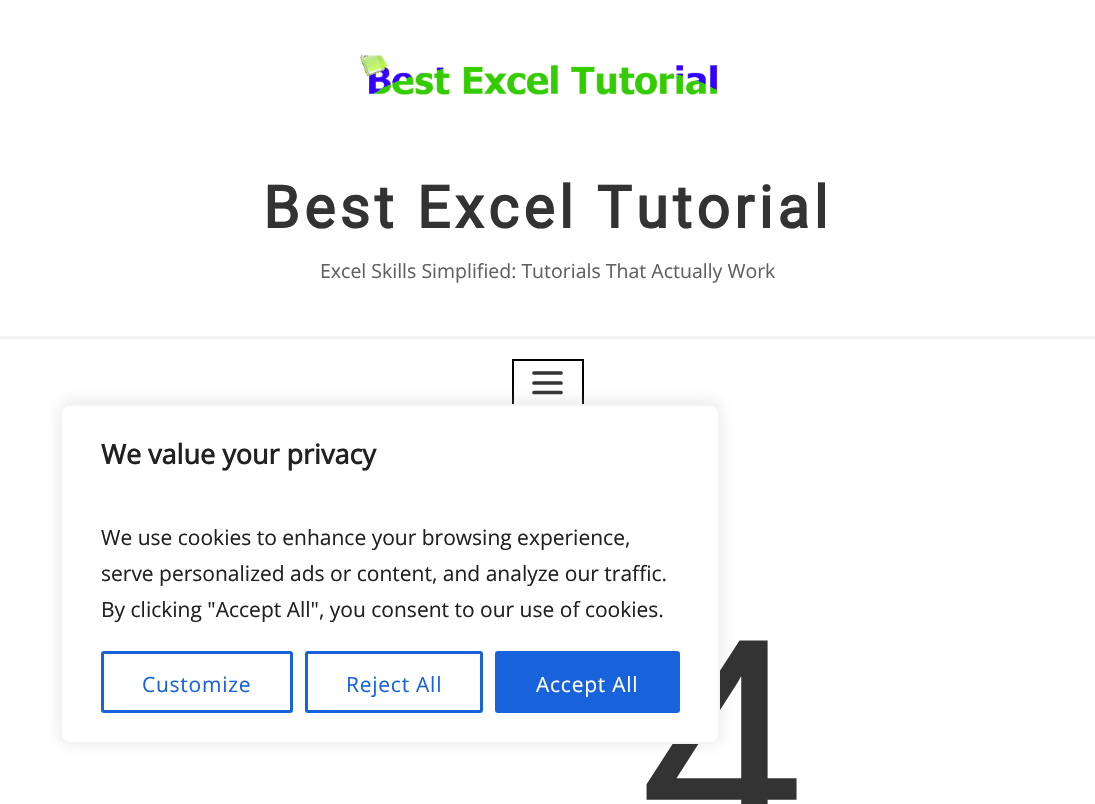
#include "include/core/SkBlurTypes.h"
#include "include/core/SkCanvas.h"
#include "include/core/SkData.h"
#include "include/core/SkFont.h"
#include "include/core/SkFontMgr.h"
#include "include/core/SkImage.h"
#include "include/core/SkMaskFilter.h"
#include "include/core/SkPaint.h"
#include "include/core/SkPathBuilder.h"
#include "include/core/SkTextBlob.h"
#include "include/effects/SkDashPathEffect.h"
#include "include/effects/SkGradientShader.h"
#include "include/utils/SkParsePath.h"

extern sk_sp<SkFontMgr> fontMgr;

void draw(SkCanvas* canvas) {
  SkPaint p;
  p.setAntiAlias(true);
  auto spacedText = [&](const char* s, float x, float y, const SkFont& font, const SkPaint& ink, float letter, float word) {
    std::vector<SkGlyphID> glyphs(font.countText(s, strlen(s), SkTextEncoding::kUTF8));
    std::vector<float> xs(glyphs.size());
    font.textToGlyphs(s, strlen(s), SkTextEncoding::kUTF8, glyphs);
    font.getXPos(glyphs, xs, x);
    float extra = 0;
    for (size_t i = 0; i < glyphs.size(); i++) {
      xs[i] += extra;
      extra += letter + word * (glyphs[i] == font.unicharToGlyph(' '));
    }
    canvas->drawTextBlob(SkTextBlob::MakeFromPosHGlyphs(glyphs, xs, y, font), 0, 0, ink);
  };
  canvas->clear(SK_ColorWHITE);
  canvas->drawImageRect(SkImages::DeferredFromEncodedData(SkData::MakeFromFileName("images/1.png")), SkRect::MakeLTRB(360, 55, 717, 95), SkSamplingOptions());
  p.setColor(SkColorSetRGB(243, 242, 241));
  canvas->drawRect(SkRect::MakeLTRB(0, 336, 1095, 339), p);
  p.setStyle(SkPaint::kStroke_Style);
  p.setStrokeWidth(2);
  p.setColor(SK_ColorBLACK);
  canvas->drawRect(SkRect::MakeLTRB(513, 360, 583, 407), p);
  p.setStrokeWidth(3.7f);
  p.setStrokeCap(SkPaint::kRound_Cap);
  p.setColor(SkColorSetRGB(51, 51, 51));
  canvas->drawPath(SkPathBuilder().moveTo(534, 373).lineTo(561, 373).moveTo(534, 383).lineTo(561, 383).moveTo(534, 392.5f).lineTo(561, 392.5f).detach(), p);
  p.setStyle(SkPaint::kFill_Style);
  p.setColor(SkColorSetARGB(77, 172, 171, 171));
  p.setMaskFilter(SkMaskFilter::MakeBlur(kNormal_SkBlurStyle, 7.5f));
  canvas->drawRoundRect(SkRect::MakeLTRB(60, 402, 720, 743), 9, 9, p);
  p.setMaskFilter(nullptr);
  SkFont font1(fontMgr->matchFamilyStyle("Roboto", SkFontStyle::Bold()), 58.5f);
  font1.setSubpixel(true);
  p.setColor(SkColorSetRGB(51, 51, 51));
  spacedText("Best Excel Tutorial", 263, 228, font1, p, 4.5f, 0);
  SkFont font2(fontMgr->matchFamilyStyle("Open Sans", SkFontStyle::Normal()), 19.5f);
  font2.setSubpixel(true);
  p.setColor(SkColorSetRGB(96, 96, 96));
  canvas->drawString("Excel Skills Simplified: Tutorials That Actually Work", 320, 278, font2, p);
  SkFont font3(fontMgr->matchFamilyStyle("Roboto", SkFontStyle::Normal()), 292);
  font3.setSubpixel(true);
  p.setColor(SkColorSetRGB(51, 51, 51));
  spacedText("4", 639, 848, font3, p, 18, 0);
  p.setColor(SK_ColorWHITE);
  canvas->drawRoundRect(SkRect::MakeLTRB(61, 405, 719, 743), 8, 8, p);
  p.setStyle(SkPaint::kStroke_Style);
  p.setStrokeWidth(2);
  p.setStrokeCap(SkPaint::kButt_Cap);
  p.setColor(SkColorSetRGB(244, 244, 244));
  canvas->drawRoundRect(SkRect::MakeLTRB(61, 405, 719, 743), 8, 8, p);
  SkFont font4(fontMgr->matchFamilyStyle("Open Sans", SkFontStyle::Bold()), 27);
  font4.setSubpixel(true);
  p.setStyle(SkPaint::kFill_Style);
  p.setColor(SkColorSetRGB(33, 33, 33));
  canvas->drawString("We value your privacy", 101, 464, font4, p);
  SkFont font5(fontMgr->matchFamilyStyle("Open Sans", SkFontStyle::Normal()), 21);
  font5.setSubpixel(true);
  canvas->drawString("We use cookies to enhance your browsing experience,", 101, 545, font5, p);
  canvas->drawString("serve personalized ads or content, and analyze our traffic.", 101, 581, font5, p);
  canvas->drawString("By clicking \"Accept All\", you consent to our use of cookies.", 101, 617, font5, p);
  p.setStyle(SkPaint::kStroke_Style);
  p.setStrokeWidth(3);
  p.setColor(SkColorSetRGB(24, 99, 220));
  canvas->drawRoundRect(SkRect::MakeLTRB(102.5f, 652.5f, 291.5f, 711.5f), 1.5f, 1.5f, p);
  p.setStyle(SkPaint::kFill_Style);
  spacedText("Customize", 142, 692, font5, p, 0.75f, 0);
  p.setStyle(SkPaint::kStroke_Style);
  canvas->drawRoundRect(SkRect::MakeLTRB(306.5f, 652.5f, 481.5f, 711.5f), 1.5f, 1.5f, p);
  p.setStyle(SkPaint::kFill_Style);
  spacedText("Reject All", 346, 692, font5, p, 0.75f, 0);
  canvas->drawRoundRect(SkRect::MakeLTRB(496.5f, 652.5f, 678.5f, 711.5f), 1.5f, 1.5f, p);
  p.setStyle(SkPaint::kStroke_Style);
  canvas->drawRoundRect(SkRect::MakeLTRB(496.5f, 652.5f, 678.5f, 711.5f), 1.5f, 1.5f, p);
  p.setStyle(SkPaint::kFill_Style);
  p.setColor(SK_ColorWHITE);
  spacedText("Accept All", 536, 692, font5, p, 0.75f, 0);
}
